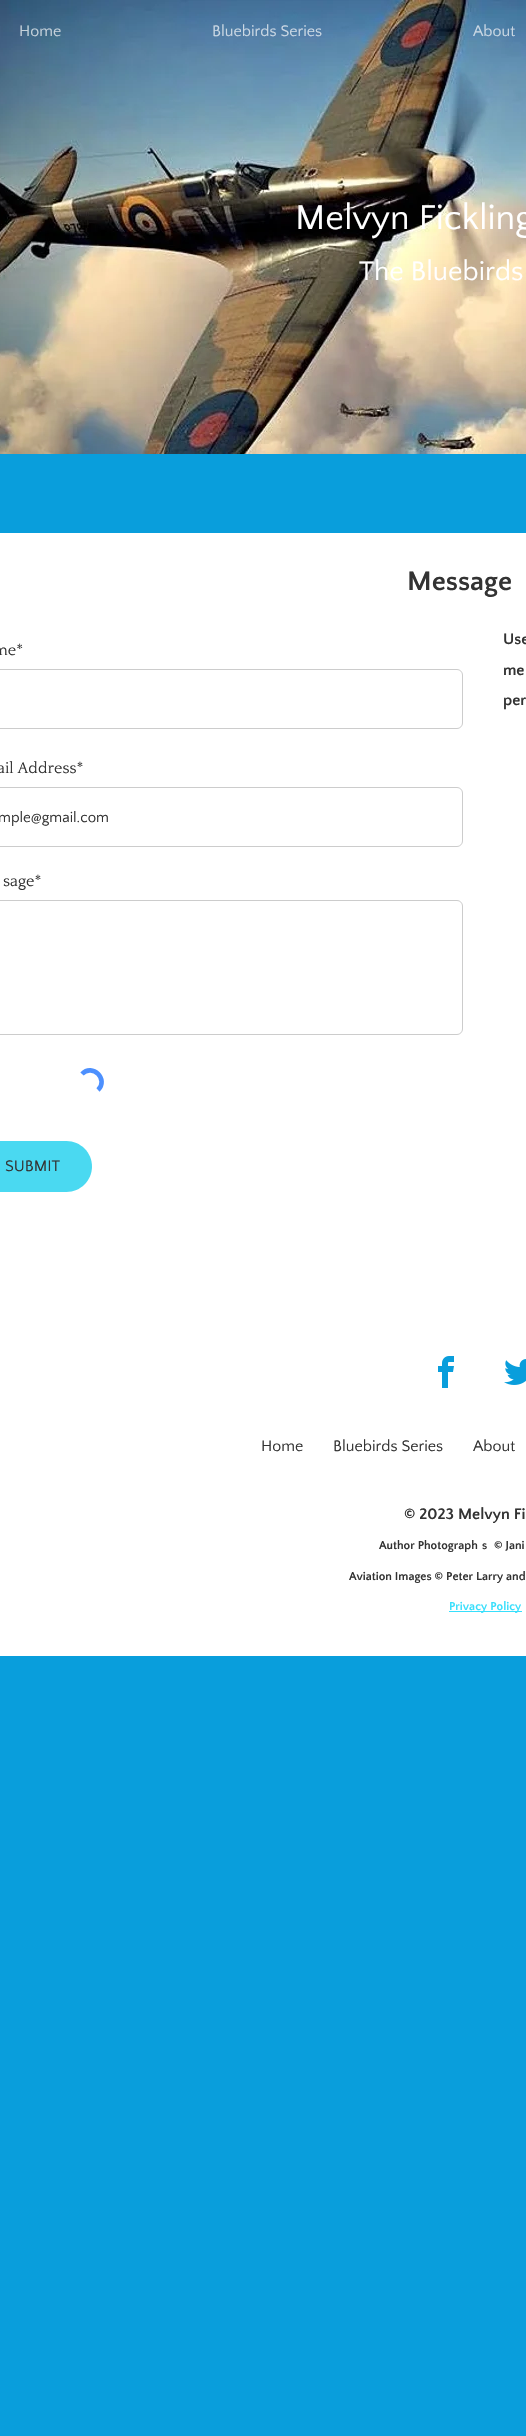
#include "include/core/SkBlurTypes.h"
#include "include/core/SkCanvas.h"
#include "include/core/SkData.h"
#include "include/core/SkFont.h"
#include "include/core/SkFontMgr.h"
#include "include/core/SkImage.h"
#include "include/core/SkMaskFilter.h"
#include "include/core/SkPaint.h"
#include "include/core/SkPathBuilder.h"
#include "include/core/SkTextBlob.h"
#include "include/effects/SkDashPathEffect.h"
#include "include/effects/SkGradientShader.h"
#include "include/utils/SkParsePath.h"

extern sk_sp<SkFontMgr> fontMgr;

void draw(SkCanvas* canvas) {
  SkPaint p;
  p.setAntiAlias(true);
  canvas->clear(SkColorSetRGB(9, 158, 220));
  canvas->drawImageRect(SkImages::DeferredFromEncodedData(SkData::MakeFromFileName("images/1.png")), SkRect::MakeLTRB(0, 0, 526, 454), SkSamplingOptions());
  p.setColor(SK_ColorWHITE);
  canvas->drawRect(SkRect::MakeLTRB(0, 533, 526, 1656), p);
  p.setStyle(SkPaint::kStroke_Style);
  p.setStrokeWidth(1);
  p.setColor(SkColorSetRGB(204, 204, 204));
  canvas->drawRoundRect(SkRect::MakeLTRB(-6.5f, 669.5f, 462.5f, 728.5f), 5.5f, 5.5f, p);
  canvas->drawRoundRect(SkRect::MakeLTRB(-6.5f, 787.5f, 462.5f, 846.5f), 5.5f, 5.5f, p);
  canvas->drawRoundRect(SkRect::MakeLTRB(-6.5f, 900.5f, 462.5f, 1034.5f), 5.5f, 5.5f, p);
  p.setStrokeWidth(4.6f);
  p.setColor(SkColorSetRGB(77, 144, 254));
  canvas->drawPath(SkPathBuilder().moveTo(82, 1074).cubicTo(92.5f, 1063, 109, 1079.5f, 98, 1090).detach(), p);
  p.setStyle(SkPaint::kFill_Style);
  p.setColor(SkColorSetRGB(74, 217, 241));
  canvas->drawPath(SkPathBuilder().moveTo(0, 1141).lineTo(66.5f, 1141).cubicTo(80.5f, 1141, 92, 1152.5f, 92, 1166.5f).cubicTo(92, 1180.5f, 80.5f, 1192, 66.5f, 1192).lineTo(0, 1192).close().detach(), p);
  canvas->drawImageRect(SkImages::DeferredFromEncodedData(SkData::MakeFromFileName("images/2.png")), SkRect::MakeLTRB(438, 1356, 454, 1388), SkSamplingOptions());
  canvas->drawImageRect(SkImages::DeferredFromEncodedData(SkData::MakeFromFileName("images/3.png")), SkRect::MakeLTRB(504, 1359, 526, 1385), SkSamplingOptions());
  p.setColor(SkColorSetRGB(55, 223, 252));
  canvas->drawRect(SkRect::MakeLTRB(449, 1611, 522, 1612), p);
  SkFont font1(fontMgr->matchFamilyStyle("Quattrocento Sans", SkFontStyle::Normal()), 16);
  font1.setSubpixel(true);
  p.setColor(SkColorSetRGB(198, 210, 219));
  canvas->drawString("Home", 19, 36, font1, p);
  p.setColor(SkColorSetRGB(203, 216, 228));
  canvas->drawString("Bluebirds Series", 212, 36, font1, p);
  canvas->drawString("About", 473, 36, font1, p);
  SkFont font2(fontMgr->matchFamilyStyle("Quattrocento Sans", SkFontStyle::Normal()), 36);
  font2.setSubpixel(true);
  p.setColor(SK_ColorWHITE);
  canvas->drawString("Melvyn Fickling", 295, 229, font2, p);
  SkFont font3(fontMgr->matchFamilyStyle("Quattrocento Sans", SkFontStyle::Normal()), 28);
  font3.setSubpixel(true);
  canvas->drawString("The Bluebirds", 359, 280, font3, p);
  SkFont font4(fontMgr->matchFamilyStyle("Quattrocento Sans", SkFontStyle::Bold()), 28);
  font4.setSubpixel(true);
  p.setColor(SkColorSetRGB(51, 51, 51));
  canvas->drawString("Message", 407, 590, font4, p);
  SkFont font5(fontMgr->matchFamilyStyle("Quattrocento", SkFontStyle::Normal()), 16);
  font5.setSubpixel(true);
  canvas->drawString("me*", -7, 655, font5, p);
  canvas->drawString("ail Address*", -3, 773, font5, p);
  SkFont font6(fontMgr->matchFamilyStyle("Quattrocento Sans", SkFontStyle::Normal()), 15);
  font6.setSubpixel(true);
  canvas->drawString("mple@gmail.com", -2, 822, font6, p);
  canvas->drawString("sage*", 3, 886, font5, p);
  canvas->drawString("SUBMIT", 5, 1171, font1, p);
  SkFont font7(fontMgr->matchFamilyStyle("Quattrocento Sans", SkFontStyle::Bold()), 16);
  font7.setSubpixel(true);
  canvas->drawString("Use", 503, 644, font7, p);
  canvas->drawString("me", 503, 675, font7, p);
  canvas->drawString("per", 503, 705, font7, p);
  canvas->drawString("Home", 261, 1451, font1, p);
  canvas->drawString("Bluebirds Series", 333, 1451, font1, p);
  canvas->drawString("About", 473, 1451, font1, p);
  canvas->drawString("© 2023 Melvyn Fi", 404, 1519, font7, p);
  SkFont font8(fontMgr->matchFamilyStyle("Quattrocento Sans", SkFontStyle::Bold()), 12);
  font8.setSubpixel(true);
  canvas->drawString("Author Photograph", 379, 1549, font8, p);
  canvas->drawString("s", 482, 1549, font8, p);
  canvas->drawString("© Jani", 494, 1549, font8, p);
  canvas->drawString("Aviation Images © Peter Larry and", 349, 1580, font8, p);
  p.setColor(SkColorSetRGB(55, 223, 252));
  canvas->drawString("Privacy Policy", 449, 1610, font8, p);
}
